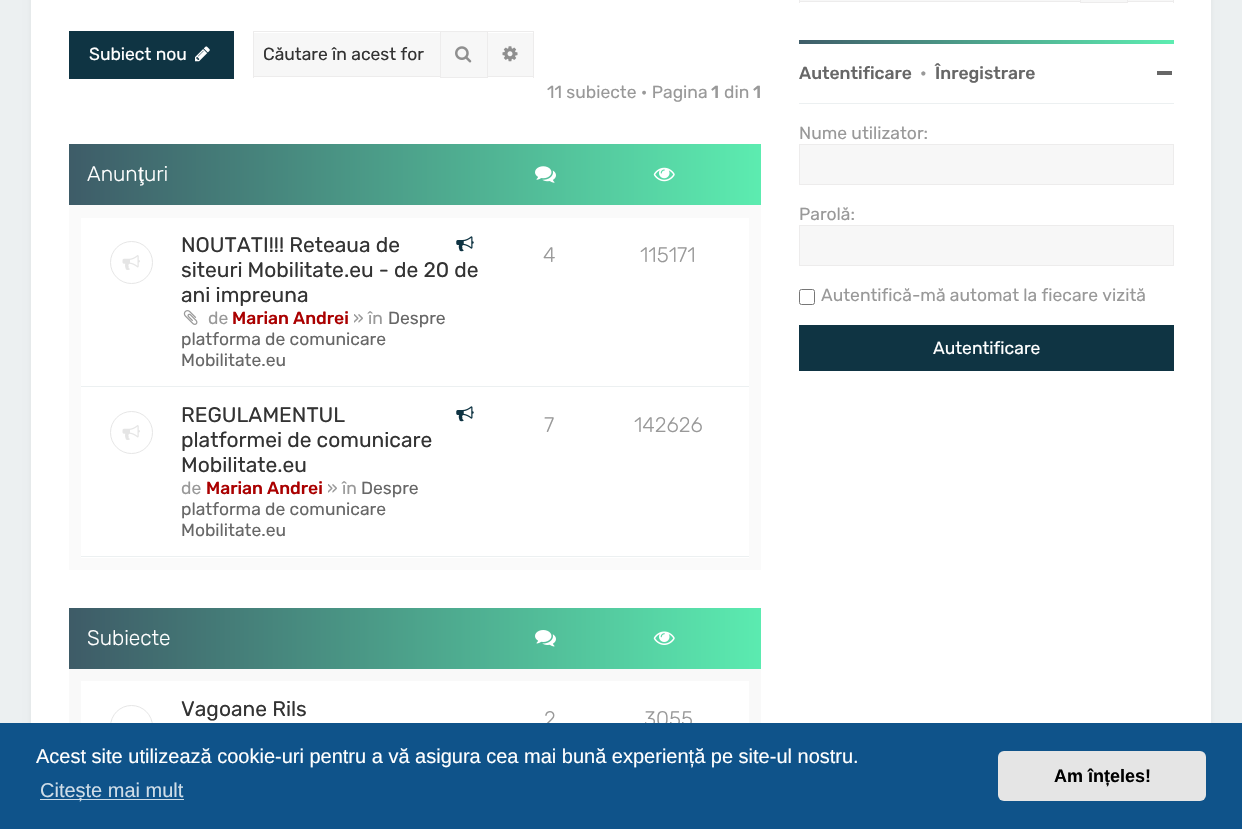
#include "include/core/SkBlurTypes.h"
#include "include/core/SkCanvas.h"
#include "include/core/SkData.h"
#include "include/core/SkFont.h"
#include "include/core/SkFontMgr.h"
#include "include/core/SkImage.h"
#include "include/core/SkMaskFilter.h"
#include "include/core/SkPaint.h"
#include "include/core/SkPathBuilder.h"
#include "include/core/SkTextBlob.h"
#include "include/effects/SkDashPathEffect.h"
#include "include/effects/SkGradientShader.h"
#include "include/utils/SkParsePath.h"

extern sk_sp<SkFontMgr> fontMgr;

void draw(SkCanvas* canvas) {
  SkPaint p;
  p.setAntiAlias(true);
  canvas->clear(SkColorSetRGB(236, 240, 241));
  p.setColor(SkColorSetARGB(13, 0, 0, 0));
  p.setMaskFilter(SkMaskFilter::MakeBlur(kNormal_SkBlurStyle, 3));
  canvas->drawRect(SkRect::MakeLTRB(31, -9, 1211, 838), p);
  p.setMaskFilter(nullptr);
  p.setColor(SK_ColorWHITE);
  canvas->drawRect(SkRect::MakeLTRB(31, 0, 1211, 723), p);
  p.setColor(SkColorSetRGB(15, 52, 67));
  canvas->drawRect(SkRect::MakeLTRB(69, 31, 234, 79), p);
  canvas->drawImageRect(SkImages::DeferredFromEncodedData(SkData::MakeFromFileName("images/1.png")), SkRect::MakeLTRB(195, 46, 210, 62), SkSamplingOptions());
  p.setColor(SkColorSetRGB(247, 247, 247));
  canvas->drawRect(SkRect::MakeLTRB(254, 33, 440, 76), p);
  p.setColor(SkColorSetRGB(237, 236, 236));
  canvas->drawRect(SkRect::MakeLTRB(253, 31, 440, 32), p);
  canvas->drawRect(SkRect::MakeLTRB(253, 76, 440, 77), p);
  canvas->drawRect(SkRect::MakeLTRB(253, 31, 254, 78), p);
  p.setColor(SkColorSetRGB(247, 247, 247));
  canvas->drawRect(SkRect::MakeLTRB(440.5f, 31.5f, 487.5f, 77.5f), p);
  p.setStyle(SkPaint::kStroke_Style);
  p.setStrokeWidth(1);
  p.setColor(SkColorSetRGB(237, 236, 236));
  canvas->drawRect(SkRect::MakeLTRB(440.5f, 31.5f, 487.5f, 77.5f), p);
  canvas->drawImageRect(SkImages::DeferredFromEncodedData(SkData::MakeFromFileName("images/2.png")), SkRect::MakeLTRB(455, 46, 472, 63), SkSamplingOptions());
  p.setStyle(SkPaint::kFill_Style);
  p.setColor(SkColorSetRGB(247, 247, 247));
  canvas->drawRect(SkRect::MakeLTRB(488, 33, 533, 76), p);
  p.setColor(SkColorSetRGB(237, 236, 236));
  canvas->drawRect(SkRect::MakeLTRB(488, 31, 534, 32), p);
  canvas->drawRect(SkRect::MakeLTRB(533, 31, 534, 78), p);
  canvas->drawRect(SkRect::MakeLTRB(488, 76, 534, 77), p);
  canvas->drawImageRect(SkImages::DeferredFromEncodedData(SkData::MakeFromFileName("images/3.png")), SkRect::MakeLTRB(502, 46, 518, 62), SkSamplingOptions());
  p.setColor(SkColorSetRGB(250, 250, 250));
  canvas->drawRect(SkRect::MakeLTRB(69, 205, 761, 570), p);
  {
    const SkColor colors[] = {SkColorSetRGB(62, 92, 104), SkColorSetRGB(92, 236, 176)};
    const float stops[] = {0, 1};
    const SkPoint ends[] = {{69, 174}, {761, 174}};
    p.setShader(SkGradientShader::MakeLinear(ends, colors, stops, 2, SkTileMode::kClamp));
    p.setAlpha(255);
  }
  canvas->drawRect(SkRect::MakeLTRB(69, 144, 761, 205), p);
  canvas->drawImageRect(SkImages::DeferredFromEncodedData(SkData::MakeFromFileName("images/4.png")), SkRect::MakeLTRB(535, 166, 556, 183), SkSamplingOptions());
  canvas->drawImageRect(SkImages::DeferredFromEncodedData(SkData::MakeFromFileName("images/5.png")), SkRect::MakeLTRB(653, 167, 675, 182), SkSamplingOptions());
  p.setShader(nullptr);
  p.setColor(SK_ColorWHITE);
  canvas->drawRect(SkRect::MakeLTRB(81, 218, 749, 558), p);
  p.setColor(SkColorSetRGB(236, 240, 241));
  canvas->drawRect(SkRect::MakeLTRB(81, 386, 749, 387), p);
  p.setStyle(SkPaint::kStroke_Style);
  p.setColor(SkColorSetRGB(230, 230, 230));
  canvas->drawCircle(131.5f, 262.5f, 21, p);
  canvas->drawImageRect(SkImages::DeferredFromEncodedData(SkData::MakeFromFileName("images/6.png")), SkRect::MakeLTRB(122, 255, 140, 270), SkSamplingOptions());
  canvas->drawImageRect(SkImages::DeferredFromEncodedData(SkData::MakeFromFileName("images/7.png")), SkRect::MakeLTRB(456, 236, 474, 252), SkSamplingOptions());
  canvas->drawImageRect(SkImages::DeferredFromEncodedData(SkData::MakeFromFileName("images/8.png")), SkRect::MakeLTRB(183, 310, 198, 325), SkSamplingOptions());
  p.setStyle(SkPaint::kFill_Style);
  p.setColor(SkColorSetRGB(236, 240, 241));
  canvas->drawRect(SkRect::MakeLTRB(81, 556, 749, 557), p);
  p.setStyle(SkPaint::kStroke_Style);
  p.setColor(SkColorSetRGB(230, 230, 230));
  canvas->drawCircle(131.5f, 432.5f, 21, p);
  canvas->drawImageRect(SkImages::DeferredFromEncodedData(SkData::MakeFromFileName("images/6.png")), SkRect::MakeLTRB(122, 425, 140, 440), SkSamplingOptions());
  canvas->drawImageRect(SkImages::DeferredFromEncodedData(SkData::MakeFromFileName("images/7.png")), SkRect::MakeLTRB(456, 406, 474, 422), SkSamplingOptions());
  p.setStyle(SkPaint::kFill_Style);
  p.setColor(SkColorSetRGB(249, 249, 249));
  canvas->drawRect(SkRect::MakeLTRB(69, 669, 761, 723), p);
  {
    const SkColor colors[] = {SkColorSetRGB(62, 91, 103), SkColorSetRGB(91, 235, 176)};
    const float stops[] = {0, 1};
    const SkPoint ends[] = {{69, 638}, {761, 638}};
    p.setShader(SkGradientShader::MakeLinear(ends, colors, stops, 2, SkTileMode::kClamp));
    p.setAlpha(255);
  }
  canvas->drawRect(SkRect::MakeLTRB(69, 608, 761, 669), p);
  canvas->drawImageRect(SkImages::DeferredFromEncodedData(SkData::MakeFromFileName("images/9.png")), SkRect::MakeLTRB(535, 630, 556, 647), SkSamplingOptions());
  canvas->drawImageRect(SkImages::DeferredFromEncodedData(SkData::MakeFromFileName("images/10.png")), SkRect::MakeLTRB(653, 631, 675, 645), SkSamplingOptions());
  p.setShader(nullptr);
  p.setColor(SK_ColorWHITE);
  canvas->drawRect(SkRect::MakeLTRB(81, 681, 749, 723), p);
  p.setStyle(SkPaint::kStroke_Style);
  p.setColor(SkColorSetRGB(230, 230, 230));
  canvas->drawCircle(131.5f, 726.5f, 21, p);
  p.setStyle(SkPaint::kFill_Style);
  p.setColor(SkColorSetRGB(247, 247, 247));
  canvas->drawRect(SkRect::MakeLTRB(800, 0, 1080, 1), p);
  p.setColor(SkColorSetRGB(237, 236, 236));
  canvas->drawRect(SkRect::MakeLTRB(799, 1, 1080, 2), p);
  canvas->drawRect(SkRect::MakeLTRB(799, 0, 800, 3), p);
  p.setColor(SkColorSetRGB(247, 247, 247));
  canvas->drawRect(SkRect::MakeLTRB(1080.5f, -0.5f, 1127.5f, 2.5f), p);
  p.setStyle(SkPaint::kStroke_Style);
  p.setColor(SkColorSetRGB(237, 236, 236));
  canvas->drawRect(SkRect::MakeLTRB(1080.5f, -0.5f, 1127.5f, 2.5f), p);
  p.setStyle(SkPaint::kFill_Style);
  p.setColor(SkColorSetRGB(247, 247, 247));
  canvas->drawRect(SkRect::MakeLTRB(1128, 0, 1173, 1), p);
  p.setColor(SkColorSetRGB(237, 236, 236));
  canvas->drawRect(SkRect::MakeLTRB(1173, 0, 1174, 3), p);
  canvas->drawRect(SkRect::MakeLTRB(1128, 1, 1174, 2), p);
  {
    const SkColor colors[] = {SkColorSetRGB(63, 93, 105), SkColorSetRGB(93, 237, 177)};
    const float stops[] = {0, 1};
    const SkPoint ends[] = {{799, 42}, {1174, 42}};
    p.setShader(SkGradientShader::MakeLinear(ends, colors, stops, 2, SkTileMode::kClamp));
    p.setAlpha(255);
  }
  canvas->drawRect(SkRect::MakeLTRB(799, 40, 1174, 44), p);
  p.setShader(nullptr);
  p.setColor(SkColorSetRGB(103, 103, 103));
  canvas->drawRect(SkRect::MakeLTRB(1157, 71, 1172, 75), p);
  p.setColor(SkColorSetRGB(236, 240, 241));
  canvas->drawRect(SkRect::MakeLTRB(799, 103, 1174, 104), p);
  p.setColor(SkColorSetRGB(247, 247, 247));
  canvas->drawRect(SkRect::MakeLTRB(799.5f, 144.5f, 1173.5f, 184.5f), p);
  p.setStyle(SkPaint::kStroke_Style);
  p.setColor(SkColorSetRGB(237, 236, 236));
  canvas->drawRect(SkRect::MakeLTRB(799.5f, 144.5f, 1173.5f, 184.5f), p);
  p.setStyle(SkPaint::kFill_Style);
  p.setColor(SkColorSetRGB(247, 247, 247));
  canvas->drawRect(SkRect::MakeLTRB(799.5f, 225.5f, 1173.5f, 265.5f), p);
  p.setStyle(SkPaint::kStroke_Style);
  p.setColor(SkColorSetRGB(237, 236, 236));
  canvas->drawRect(SkRect::MakeLTRB(799.5f, 225.5f, 1173.5f, 265.5f), p);
  p.setColor(SkColorSetRGB(118, 118, 118));
  canvas->drawRoundRect(SkRect::MakeLTRB(799.5f, 289.5f, 814.5f, 304.5f), 2, 2, p);
  p.setStyle(SkPaint::kFill_Style);
  p.setColor(SkColorSetRGB(15, 52, 67));
  canvas->drawRect(SkRect::MakeLTRB(799, 325, 1174, 371), p);
  SkFont font1(fontMgr->matchFamilyStyle("Rubik", SkFontStyle::Normal()), 17.5f);
  font1.setSubpixel(true);
  p.setColor(SK_ColorWHITE);
  canvas->drawString("Subiect nou", 89, 60, font1, p);
  p.setColor(SkColorSetRGB(51, 51, 51));
  canvas->drawString("Căutare în acest for", 263, 60, font1, p);
  p.setColor(SkColorSetRGB(153, 153, 153));
  canvas->drawString("11 subiecte • Pagina", 547, 98, font1, p);
  SkFont font2(fontMgr->matchFamilyStyle("Rubik", SkFontStyle(500, SkFontStyle::kNormal_Width, SkFontStyle::kUpright_Slant)), 17.5f);
  font2.setSubpixel(true);
  canvas->drawString("1", 711, 98, font2, p);
  canvas->drawString("din", 724, 98, font1, p);
  canvas->drawString("1", 753, 98, font2, p);
  SkFont font3(fontMgr->matchFamilyStyle("Rubik", SkFontStyle(300, SkFontStyle::kNormal_Width, SkFontStyle::kUpright_Slant)), 21);
  font3.setSubpixel(true);
  p.setColor(SK_ColorWHITE);
  canvas->drawString("Anun", 87, 181, font3, p);
  SkFont font4(fontMgr->matchFamilyStyle("Liberation Sans", SkFontStyle::Normal()), 21);
  font4.setSubpixel(true);
  canvas->drawString("ţ", 138, 181, font4, p);
  canvas->drawString("uri", 144, 181, font3, p);
  SkFont font5(fontMgr->matchFamilyStyle("Rubik", SkFontStyle::Normal()), 21);
  font5.setSubpixel(true);
  p.setColor(SkColorSetRGB(51, 51, 51));
  canvas->drawString("NOUTATI!!! Reteaua de", 181, 252, font5, p);
  canvas->drawString("siteuri Mobilitate.eu - de 20 de", 181, 277, font5, p);
  canvas->drawString("ani impreuna", 181, 302, font5, p);
  p.setColor(SkColorSetRGB(153, 153, 153));
  canvas->drawString("de", 208, 324, font1, p);
  p.setColor(SkColorSetRGB(170, 0, 0));
  canvas->drawString("Marian Andrei", 232, 324, font2, p);
  p.setColor(SkColorSetRGB(153, 153, 153));
  canvas->drawString("» în", 353, 324, font1, p);
  p.setColor(SkColorSetRGB(103, 103, 103));
  canvas->drawString("Despre", 388, 324, font1, p);
  canvas->drawString("platforma de comunicare", 181, 345, font1, p);
  canvas->drawString("Mobilitate.eu", 181, 366, font1, p);
  p.setColor(SkColorSetRGB(153, 153, 153));
  canvas->drawString("4", 543, 262, font3, p);
  canvas->drawString("115171", 640, 262, font3, p);
  p.setColor(SkColorSetRGB(51, 51, 51));
  canvas->drawString("REGULAMENTUL", 181, 422, font5, p);
  canvas->drawString("platformei de comunicare", 181, 447, font5, p);
  canvas->drawString("Mobilitate.eu", 181, 472, font5, p);
  p.setColor(SkColorSetRGB(153, 153, 153));
  canvas->drawString("de", 181, 494, font1, p);
  p.setColor(SkColorSetRGB(170, 0, 0));
  canvas->drawString("Marian Andrei", 206, 494, font2, p);
  p.setColor(SkColorSetRGB(153, 153, 153));
  canvas->drawString("» în", 327, 494, font1, p);
  p.setColor(SkColorSetRGB(103, 103, 103));
  canvas->drawString("Despre", 361, 494, font1, p);
  canvas->drawString("platforma de comunicare", 181, 515, font1, p);
  canvas->drawString("Mobilitate.eu", 181, 536, font1, p);
  p.setColor(SkColorSetRGB(153, 153, 153));
  canvas->drawString("7", 544, 432, font3, p);
  canvas->drawString("142626", 634, 432, font3, p);
  p.setColor(SK_ColorWHITE);
  canvas->drawString("Subiecte", 87, 645, font3, p);
  p.setColor(SkColorSetRGB(51, 51, 51));
  canvas->drawString("Vagoane Rils", 181, 716, font5, p);
  p.setColor(SkColorSetRGB(153, 153, 153));
  canvas->drawString("2", 544, 726, font3, p);
  canvas->drawString("3055", 644, 726, font3, p);
  p.setColor(SkColorSetRGB(103, 103, 103));
  canvas->drawString("Autentificare", 799, 79, font2, p);
  p.setColor(SkColorSetRGB(153, 153, 153));
  canvas->drawString("•", 920, 79, font2, p);
  p.setColor(SkColorSetRGB(103, 103, 103));
  canvas->drawString("Înregistrare", 935, 79, font2, p);
  p.setColor(SkColorSetRGB(153, 153, 153));
  canvas->drawString("Nume utilizator:", 799, 139, font1, p);
  canvas->drawString("Parolă:", 799, 220, font1, p);
  canvas->drawString("Autentifică-mă automat la fiecare vizită", 821, 301, font1, p);
  p.setColor(SK_ColorWHITE);
  canvas->drawString("Autentificare", 933, 354, font1, p);
  p.setColor(SkColorSetRGB(15, 83, 138));
  canvas->drawRect(SkRect::MakeLTRB(0, 723, 1242, 829), p);
  SkFont font6(fontMgr->matchFamilyStyle("Liberation Sans", SkFontStyle::Normal()), 20);
  font6.setSubpixel(true);
  p.setColor(SK_ColorWHITE);
  canvas->drawString("Acest site utilizează cookie-uri pentru a vă asigura cea mai bună experiență pe site-ul nostru.", 36, 763, font6, p);
  p.setColor(SkColorSetRGB(207, 221, 232));
  canvas->drawRect(SkRect::MakeLTRB(40, 799, 184, 800), p);
  canvas->drawString("Citește mai mult", 40, 797, font6, p);
  p.setColor(SkColorSetRGB(229, 229, 229));
  canvas->drawRoundRect(SkRect::MakeLTRB(998, 751, 1206, 801), 6, 6, p);
  SkFont font7(fontMgr->matchFamilyStyle("Liberation Sans", SkFontStyle::Bold()), 18);
  font7.setSubpixel(true);
  p.setColor(SK_ColorBLACK);
  canvas->drawString("Am înțeles!", 1054, 782, font7, p);
}
